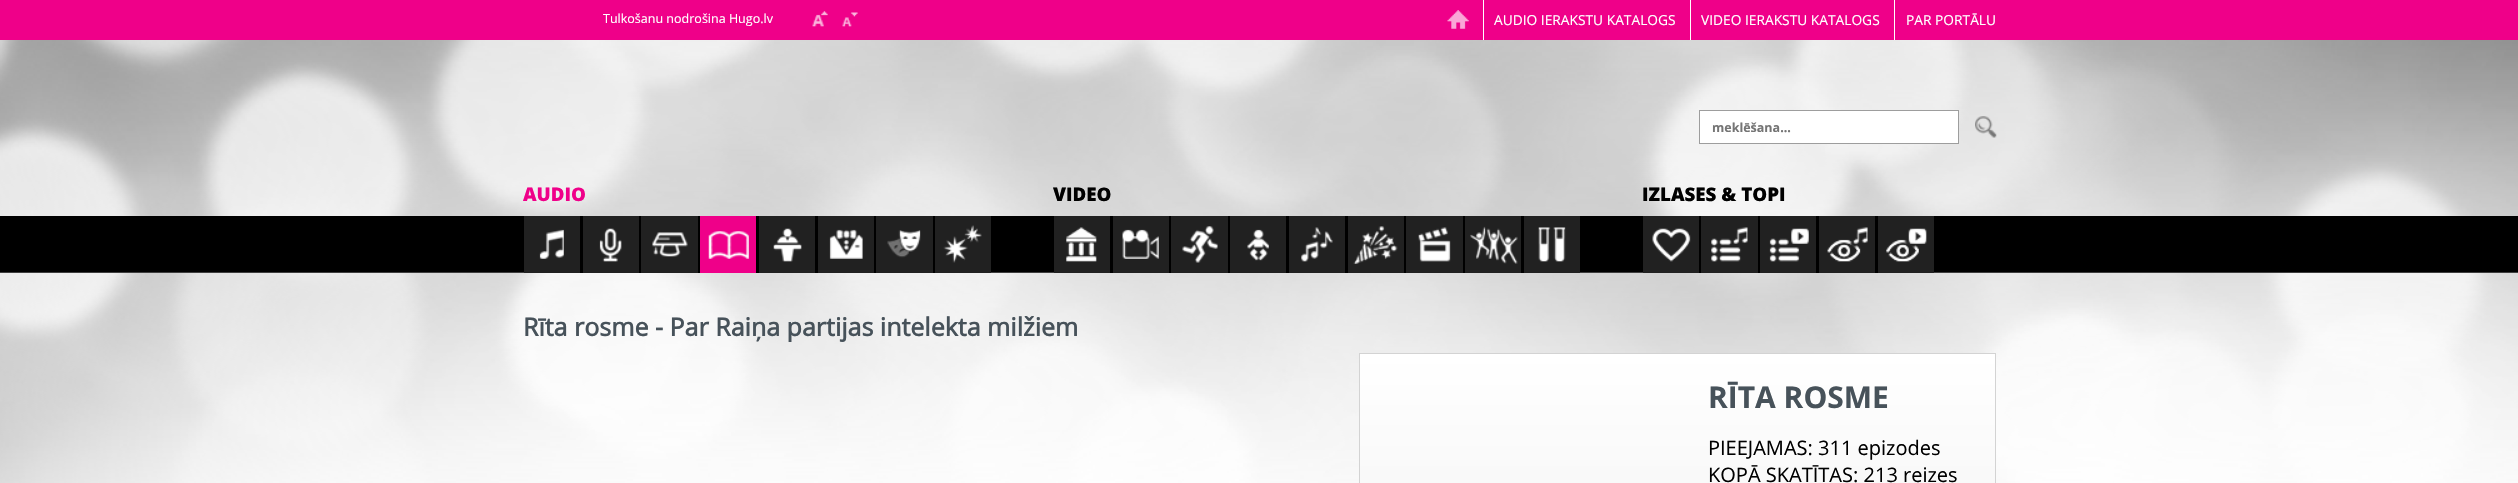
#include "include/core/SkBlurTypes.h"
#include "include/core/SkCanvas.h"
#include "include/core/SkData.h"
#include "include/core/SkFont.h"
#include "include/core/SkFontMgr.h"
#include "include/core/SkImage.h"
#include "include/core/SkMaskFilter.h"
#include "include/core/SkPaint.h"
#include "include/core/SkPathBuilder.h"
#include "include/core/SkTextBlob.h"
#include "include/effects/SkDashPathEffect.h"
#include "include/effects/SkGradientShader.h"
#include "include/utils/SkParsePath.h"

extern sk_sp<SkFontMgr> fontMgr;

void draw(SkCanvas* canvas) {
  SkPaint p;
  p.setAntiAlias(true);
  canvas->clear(SK_ColorWHITE);
  canvas->drawImageRect(SkImages::DeferredFromEncodedData(SkData::MakeFromFileName("images/1.png")), SkRect::MakeLTRB(0, 40, 2518, 483), SkSamplingOptions());
  p.setColor(SkColorSetRGB(239, 0, 137));
  canvas->drawRect(SkRect::MakeLTRB(0, 0, 2518, 40), p);
  canvas->drawImageRect(SkImages::DeferredFromEncodedData(SkData::MakeFromFileName("images/2.png")), SkRect::MakeLTRB(812, 11, 828, 27), SkSamplingOptions());
  canvas->drawImageRect(SkImages::DeferredFromEncodedData(SkData::MakeFromFileName("images/3.png")), SkRect::MakeLTRB(842, 12, 858, 27), SkSamplingOptions());
  p.setColor(SK_ColorWHITE);
  canvas->drawRect(SkRect::MakeLTRB(1699.5f, 110.5f, 1958.5f, 143.5f), p);
  p.setStyle(SkPaint::kStroke_Style);
  p.setStrokeWidth(1);
  p.setColor(SkColorSetRGB(157, 157, 157));
  canvas->drawRect(SkRect::MakeLTRB(1699.5f, 110.5f, 1958.5f, 143.5f), p);
  canvas->drawImageRect(SkImages::DeferredFromEncodedData(SkData::MakeFromFileName("images/4.png")), SkRect::MakeLTRB(1975, 116, 1997, 138), SkSamplingOptions());
  canvas->drawImageRect(SkImages::DeferredFromEncodedData(SkData::MakeFromFileName("images/5.png")), SkRect::MakeLTRB(1447, 10, 1469, 29), SkSamplingOptions());
  p.setStyle(SkPaint::kFill_Style);
  p.setColor(SK_ColorWHITE);
  canvas->drawRect(SkRect::MakeLTRB(1483, 0, 1484, 40), p);
  canvas->drawRect(SkRect::MakeLTRB(1690, 0, 1691, 40), p);
  canvas->drawRect(SkRect::MakeLTRB(1894, 0, 1895, 40), p);
  p.setColor(SK_ColorBLACK);
  canvas->drawRect(SkRect::MakeLTRB(0, 216, 2518, 272), p);
  p.setColor(SkColorSetRGB(63, 63, 63));
  canvas->drawRect(SkRect::MakeLTRB(0, 272, 2518, 273), p);
  p.setColor(SK_ColorBLACK);
  canvas->drawRect(SkRect::MakeLTRB(580, 272, 935, 273), p);
  p.setColor(SkColorSetRGB(33, 33, 33));
  canvas->drawRect(SkRect::MakeLTRB(524, 216, 580, 273), p);
  canvas->drawImageRect(SkImages::DeferredFromEncodedData(SkData::MakeFromFileName("images/6.png")), SkRect::MakeLTRB(539, 229, 564, 259), SkSamplingOptions());
  canvas->drawRect(SkRect::MakeLTRB(583, 216, 639, 273), p);
  canvas->drawImageRect(SkImages::DeferredFromEncodedData(SkData::MakeFromFileName("images/7.png")), SkRect::MakeLTRB(599, 228, 622, 262), SkSamplingOptions());
  canvas->drawRect(SkRect::MakeLTRB(641, 216, 698, 273), p);
  canvas->drawImageRect(SkImages::DeferredFromEncodedData(SkData::MakeFromFileName("images/8.png")), SkRect::MakeLTRB(652, 232, 688, 257), SkSamplingOptions());
  p.setColor(SkColorSetRGB(239, 0, 137));
  canvas->drawRect(SkRect::MakeLTRB(700, 216, 756, 273), p);
  canvas->drawImageRect(SkImages::DeferredFromEncodedData(SkData::MakeFromFileName("images/9.png")), SkRect::MakeLTRB(708, 231, 749, 259), SkSamplingOptions());
  p.setColor(SkColorSetRGB(33, 33, 33));
  canvas->drawRect(SkRect::MakeLTRB(759, 216, 815, 273), p);
  canvas->drawImageRect(SkImages::DeferredFromEncodedData(SkData::MakeFromFileName("images/10.png")), SkRect::MakeLTRB(773, 228, 802, 262), SkSamplingOptions());
  canvas->drawRect(SkRect::MakeLTRB(818, 216, 874, 273), p);
  canvas->drawImageRect(SkImages::DeferredFromEncodedData(SkData::MakeFromFileName("images/11.png")), SkRect::MakeLTRB(829, 229, 863, 259), SkSamplingOptions());
  canvas->drawRect(SkRect::MakeLTRB(876, 216, 933, 273), p);
  canvas->drawImageRect(SkImages::DeferredFromEncodedData(SkData::MakeFromFileName("images/12.png")), SkRect::MakeLTRB(887, 230, 921, 258), SkSamplingOptions());
  canvas->drawRect(SkRect::MakeLTRB(935, 216, 991, 273), p);
  canvas->drawImageRect(SkImages::DeferredFromEncodedData(SkData::MakeFromFileName("images/13.png")), SkRect::MakeLTRB(943, 225, 982, 263), SkSamplingOptions());
  p.setColor(SK_ColorBLACK);
  canvas->drawRect(SkRect::MakeLTRB(1110, 272, 1524, 273), p);
  p.setColor(SkColorSetRGB(33, 33, 33));
  canvas->drawRect(SkRect::MakeLTRB(1054, 216, 1110, 273), p);
  canvas->drawImageRect(SkImages::DeferredFromEncodedData(SkData::MakeFromFileName("images/14.png")), SkRect::MakeLTRB(1066, 227, 1097, 262), SkSamplingOptions());
  canvas->drawRect(SkRect::MakeLTRB(1113, 216, 1169, 273), p);
  canvas->drawImageRect(SkImages::DeferredFromEncodedData(SkData::MakeFromFileName("images/15.png")), SkRect::MakeLTRB(1122, 229, 1159, 259), SkSamplingOptions());
  canvas->drawRect(SkRect::MakeLTRB(1171, 216, 1228, 273), p);
  canvas->drawImageRect(SkImages::DeferredFromEncodedData(SkData::MakeFromFileName("images/16.png")), SkRect::MakeLTRB(1182, 226, 1218, 263), SkSamplingOptions());
  canvas->drawRect(SkRect::MakeLTRB(1230, 216, 1286, 273), p);
  canvas->drawImageRect(SkImages::DeferredFromEncodedData(SkData::MakeFromFileName("images/17.png")), SkRect::MakeLTRB(1247, 229, 1269, 261), SkSamplingOptions());
  canvas->drawRect(SkRect::MakeLTRB(1289, 216, 1345, 273), p);
  canvas->drawImageRect(SkImages::DeferredFromEncodedData(SkData::MakeFromFileName("images/18.png")), SkRect::MakeLTRB(1301, 227, 1333, 262), SkSamplingOptions());
  canvas->drawRect(SkRect::MakeLTRB(1348, 216, 1404, 273), p);
  canvas->drawImageRect(SkImages::DeferredFromEncodedData(SkData::MakeFromFileName("images/19.png")), SkRect::MakeLTRB(1353, 226, 1398, 264), SkSamplingOptions());
  canvas->drawRect(SkRect::MakeLTRB(1406, 216, 1463, 273), p);
  canvas->drawImageRect(SkImages::DeferredFromEncodedData(SkData::MakeFromFileName("images/20.png")), SkRect::MakeLTRB(1418, 227, 1451, 262), SkSamplingOptions());
  canvas->drawRect(SkRect::MakeLTRB(1465, 216, 1521, 273), p);
  canvas->drawImageRect(SkImages::DeferredFromEncodedData(SkData::MakeFromFileName("images/21.png")), SkRect::MakeLTRB(1470, 226, 1518, 264), SkSamplingOptions());
  canvas->drawRect(SkRect::MakeLTRB(1524, 216, 1580, 273), p);
  canvas->drawImageRect(SkImages::DeferredFromEncodedData(SkData::MakeFromFileName("images/22.png")), SkRect::MakeLTRB(1538, 227, 1566, 262), SkSamplingOptions());
  p.setColor(SK_ColorBLACK);
  canvas->drawRect(SkRect::MakeLTRB(1699, 272, 1878, 273), p);
  p.setColor(SkColorSetRGB(33, 33, 33));
  canvas->drawRect(SkRect::MakeLTRB(1643, 216, 1699, 273), p);
  canvas->drawImageRect(SkImages::DeferredFromEncodedData(SkData::MakeFromFileName("images/23.png")), SkRect::MakeLTRB(1652, 228, 1691, 262), SkSamplingOptions());
  canvas->drawRect(SkRect::MakeLTRB(1701, 216, 1758, 273), p);
  canvas->drawImageRect(SkImages::DeferredFromEncodedData(SkData::MakeFromFileName("images/24.png")), SkRect::MakeLTRB(1711, 227, 1748, 262), SkSamplingOptions());
  canvas->drawRect(SkRect::MakeLTRB(1760, 216, 1816, 273), p);
  canvas->drawImageRect(SkImages::DeferredFromEncodedData(SkData::MakeFromFileName("images/25.png")), SkRect::MakeLTRB(1769, 228, 1809, 262), SkSamplingOptions());
  canvas->drawRect(SkRect::MakeLTRB(1819, 216, 1875, 273), p);
  canvas->drawImageRect(SkImages::DeferredFromEncodedData(SkData::MakeFromFileName("images/26.png")), SkRect::MakeLTRB(1827, 227, 1868, 262), SkSamplingOptions());
  canvas->drawRect(SkRect::MakeLTRB(1878, 216, 1934, 273), p);
  canvas->drawImageRect(SkImages::DeferredFromEncodedData(SkData::MakeFromFileName("images/27.png")), SkRect::MakeLTRB(1886, 228, 1927, 262), SkSamplingOptions());
  {
    const SkColor colors[] = {SK_ColorWHITE, SkColorSetRGB(237, 237, 237)};
    const float stops[] = {0, 1};
    const SkPoint ends[] = {{1678, 354}, {1678, 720}};
    p.setShader(SkGradientShader::MakeLinear(ends, colors, stops, 2, SkTileMode::kClamp));
    p.setAlpha(255);
  }
  canvas->drawRect(SkRect::MakeLTRB(1360, 354, 1995, 483), p);
  p.setStyle(SkPaint::kStroke_Style);
  p.setShader(nullptr);
  p.setColor(SkColorSetRGB(211, 211, 211));
  canvas->drawRect(SkRect::MakeLTRB(1359.5f, 353.5f, 1995.5f, 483.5f), p);
  SkFont font1(fontMgr->matchFamilyStyle("Open Sans", SkFontStyle::Normal()), 12.5f);
  font1.setSubpixel(true);
  p.setStyle(SkPaint::kFill_Style);
  p.setColor(SK_ColorWHITE);
  canvas->drawString("Tulkošanu nodrošina Hugo.lv", 603, 23, font1, p);
  SkFont font2(fontMgr->matchFamilyStyle("Open Sans", SkFontStyle::Bold()), 12.5f);
  font2.setSubpixel(true);
  p.setColor(SkColorSetRGB(117, 117, 117));
  canvas->drawString("meklēšana...", 1712, 132, font2, p);
  SkFont font3(fontMgr->matchFamilyStyle("Open Sans", SkFontStyle::Normal()), 13.75f);
  font3.setSubpixel(true);
  p.setColor(SK_ColorWHITE);
  canvas->drawString("AUDIO IERAKSTU KATALOGS", 1494, 25, font3, p);
  canvas->drawString("VIDEO IERAKSTU KATALOGS", 1701, 25, font3, p);
  canvas->drawString("PAR PORTĀLU", 1906, 25, font3, p);
  SkFont font4(fontMgr->matchFamilyStyle("Open Sans", SkFontStyle(800, SkFontStyle::kNormal_Width, SkFontStyle::kUpright_Slant)), 18.75f);
  font4.setSubpixel(true);
  p.setColor(SkColorSetRGB(239, 0, 137));
  canvas->drawString("AUDIO", 523, 201, font4, p);
  p.setColor(SK_ColorBLACK);
  canvas->drawString("VIDEO", 1053, 201, font4, p);
  canvas->drawString("IZLASES & TOPI", 1642, 201, font4, p);
  SkFont font5(fontMgr->matchFamilyStyle("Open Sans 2", SkFontStyle::Bold()), 25);
  font5.setSubpixel(true);
  p.setColor(SkColorSetRGB(71, 82, 90));
  canvas->drawString("Rīta rosme - Par Raiņa partijas intelekta milžiem", 523, 336, font5, p);
  SkFont font6(fontMgr->matchFamilyStyle("Open Sans", SkFontStyle::Bold()), 30);
  font6.setSubpixel(true);
  canvas->drawString("RĪTA ROSME", 1708, 408, font6, p);
  SkFont font7(fontMgr->matchFamilyStyle("Open Sans", SkFontStyle::Normal()), 20);
  font7.setSubpixel(true);
  p.setColor(SK_ColorBLACK);
  canvas->drawString("PIEEJAMAS: 311 epizodes", 1708, 455, font7, p);
  canvas->drawString("KOPĀ SKATĪTAS: 213 reizes", 1708, 482, font7, p);
}
